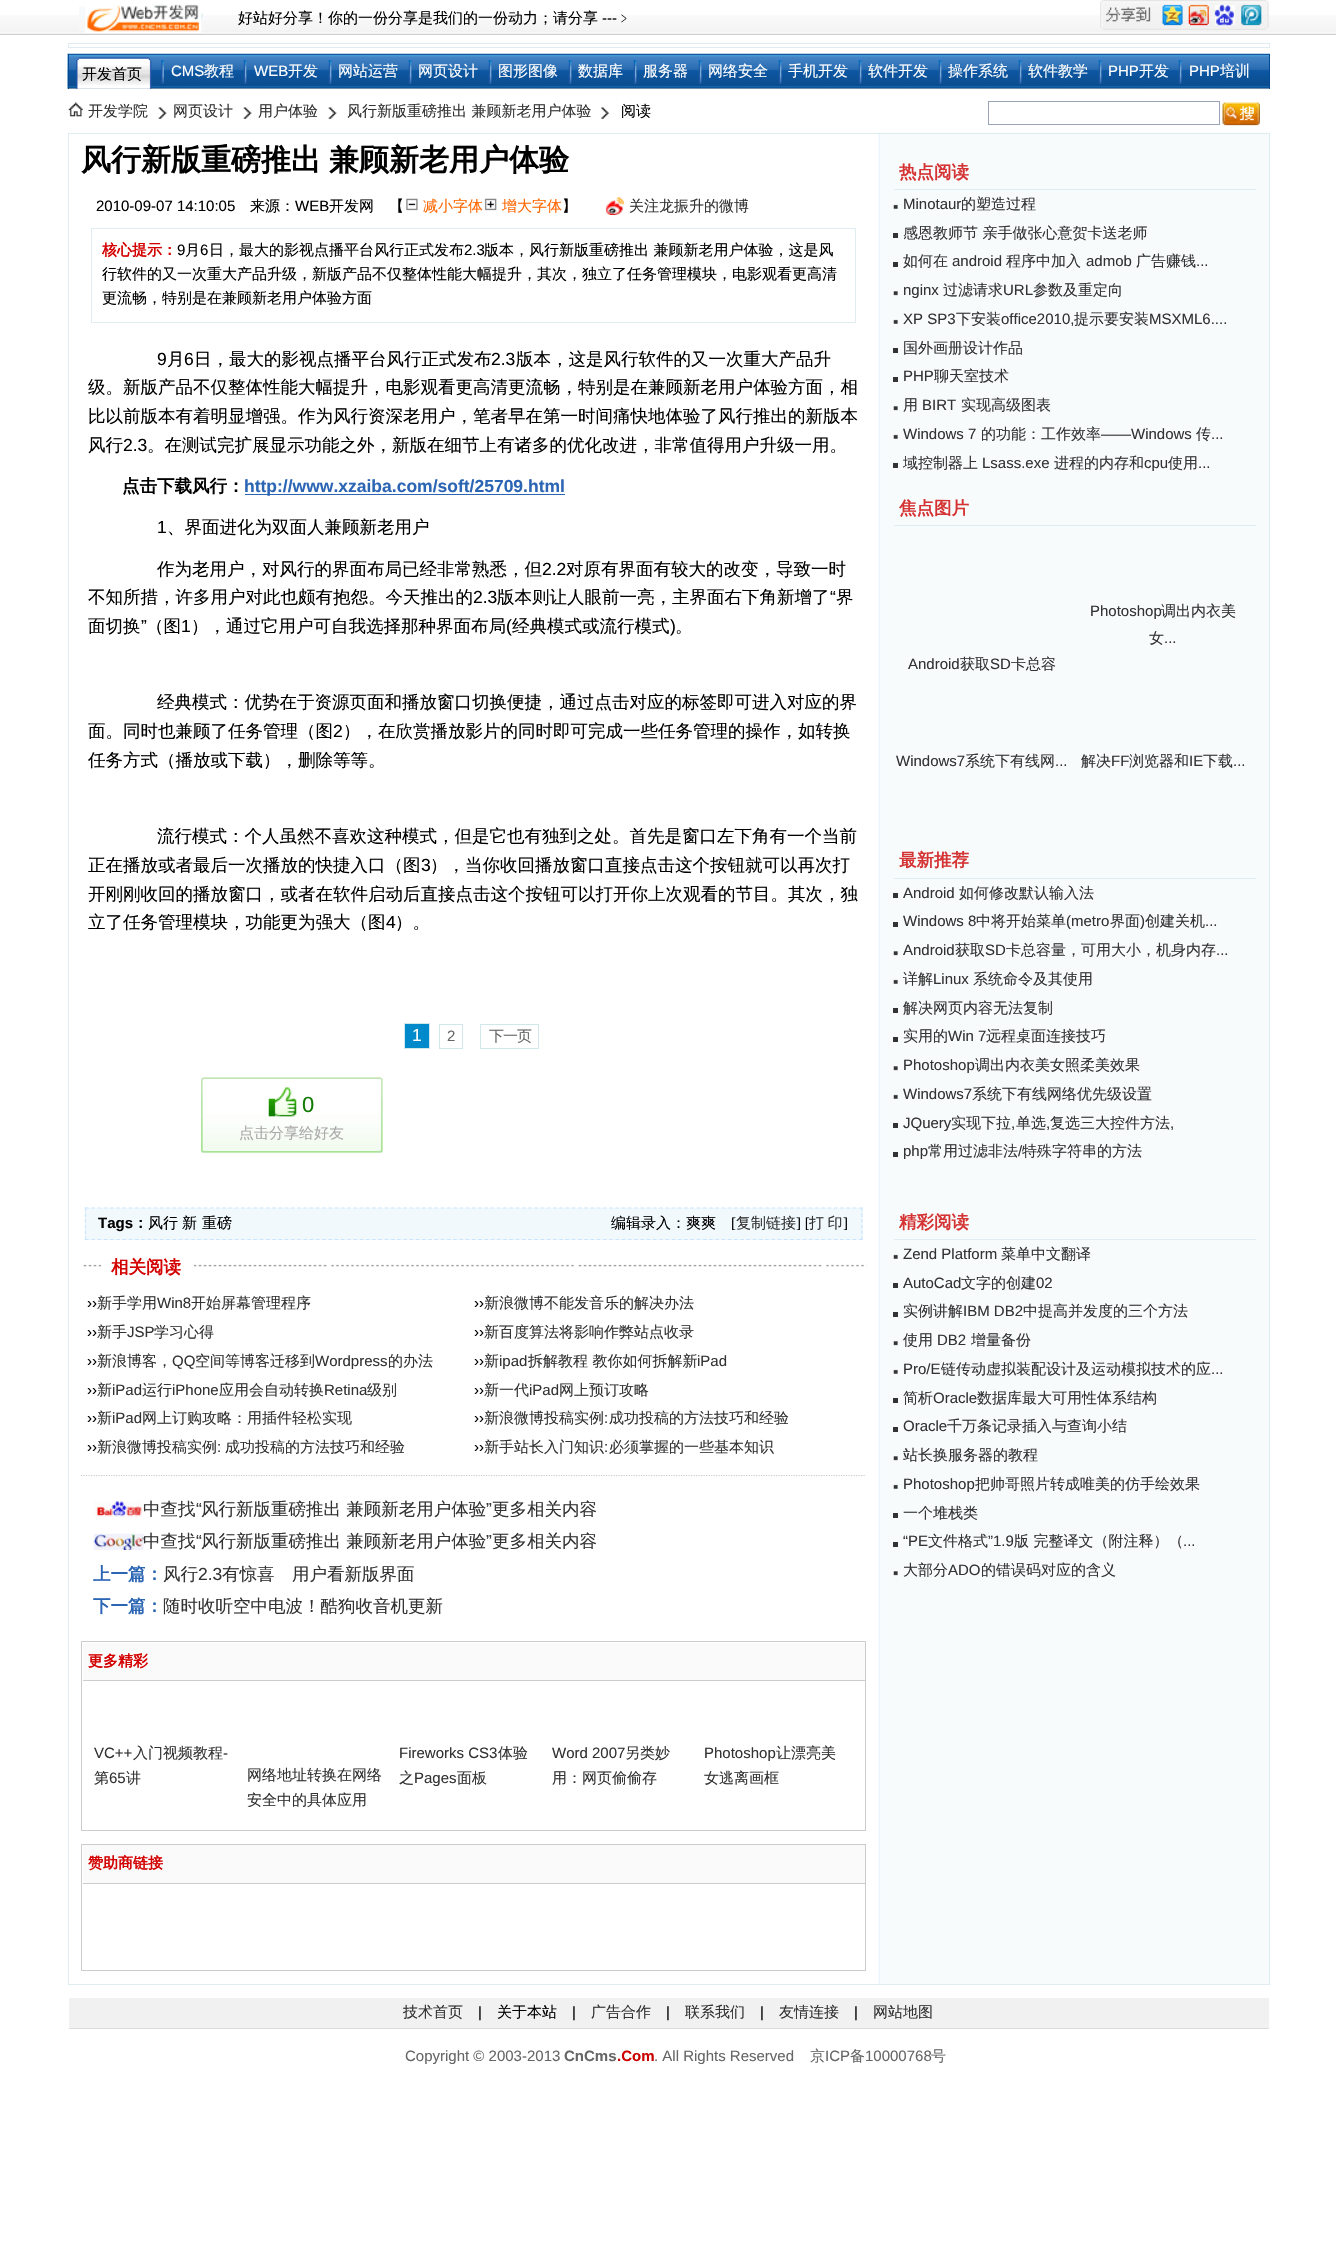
#include "include/core/SkBlurTypes.h"
#include "include/core/SkCanvas.h"
#include "include/core/SkData.h"
#include "include/core/SkFont.h"
#include "include/core/SkFontMgr.h"
#include "include/core/SkImage.h"
#include "include/core/SkMaskFilter.h"
#include "include/core/SkPaint.h"
#include "include/core/SkPathBuilder.h"
#include "include/core/SkTextBlob.h"
#include "include/effects/SkDashPathEffect.h"
#include "include/effects/SkGradientShader.h"
#include "include/utils/SkParsePath.h"

extern sk_sp<SkFontMgr> fontMgr;

void draw(SkCanvas* canvas) {
  SkPaint p;
  p.setAntiAlias(true);
  auto spacedText = [&](const char* s, float x, float y, const SkFont& font, const SkPaint& ink, float letter, float word) {
    std::vector<SkGlyphID> glyphs(font.countText(s, strlen(s), SkTextEncoding::kUTF8));
    std::vector<float> xs(glyphs.size());
    font.textToGlyphs(s, strlen(s), SkTextEncoding::kUTF8, glyphs);
    font.getXPos(glyphs, xs, x);
    float extra = 0;
    for (size_t i = 0; i < glyphs.size(); i++) {
      xs[i] += extra;
      extra += letter + word * (glyphs[i] == font.unicharToGlyph(' '));
    }
    canvas->drawTextBlob(SkTextBlob::MakeFromPosHGlyphs(glyphs, xs, y, font), 0, 0, ink);
  };
  canvas->clear(SK_ColorWHITE);
  canvas->drawImageRect(SkImages::DeferredFromEncodedData(SkData::MakeFromFileName("images/1.png")), SkRect::MakeLTRB(0, 15, 1336, 35), SkSamplingOptions());
  canvas->drawImageRect(SkImages::DeferredFromEncodedData(SkData::MakeFromFileName("images/2.png")), SkRect::MakeLTRB(79, 4, 204, 35), SkSamplingOptions());
  canvas->drawImageRect(SkImages::DeferredFromEncodedData(SkData::MakeFromFileName("images/3.png")), SkRect::MakeLTRB(1100, 0, 1269, 30), SkSamplingOptions());
  p.setStyle(SkPaint::kStroke_Style);
  p.setStrokeWidth(1);
  p.setColor(SkColorSetRGB(223, 237, 242));
  canvas->drawRect(SkRect::MakeLTRB(68.5f, 43.5f, 1269.5f, 47.5f), p);
  canvas->drawImageRect(SkImages::DeferredFromEncodedData(SkData::MakeFromFileName("images/4.png")), SkRect::MakeLTRB(67, 53, 1270, 89), SkSamplingOptions());
  p.setStyle(SkPaint::kFill_Style);
  p.setColor(SkColorSetRGB(2, 74, 147));
  canvas->drawRect(SkRect::MakeLTRB(1269, 54, 1270, 89), p);
  canvas->drawRect(SkRect::MakeLTRB(68, 54, 69, 89), p);
  canvas->drawImageRect(SkImages::DeferredFromEncodedData(SkData::MakeFromFileName("images/5.png")), SkRect::MakeLTRB(76, 57, 152, 89), SkSamplingOptions());
  canvas->drawImageRect(SkImages::DeferredFromEncodedData(SkData::MakeFromFileName("images/6.png")), SkRect::MakeLTRB(161, 60, 164, 84), SkSamplingOptions());
  canvas->drawImageRect(SkImages::DeferredFromEncodedData(SkData::MakeFromFileName("images/7.png")), SkRect::MakeLTRB(243, 60, 247, 84), SkSamplingOptions());
  canvas->drawImageRect(SkImages::DeferredFromEncodedData(SkData::MakeFromFileName("images/8.png")), SkRect::MakeLTRB(328, 60, 332, 84), SkSamplingOptions());
  canvas->drawImageRect(SkImages::DeferredFromEncodedData(SkData::MakeFromFileName("images/8.png")), SkRect::MakeLTRB(408, 60, 412, 84), SkSamplingOptions());
  canvas->drawImageRect(SkImages::DeferredFromEncodedData(SkData::MakeFromFileName("images/7.png")), SkRect::MakeLTRB(488, 60, 492, 84), SkSamplingOptions());
  canvas->drawImageRect(SkImages::DeferredFromEncodedData(SkData::MakeFromFileName("images/7.png")), SkRect::MakeLTRB(568, 60, 572, 84), SkSamplingOptions());
  canvas->drawImageRect(SkImages::DeferredFromEncodedData(SkData::MakeFromFileName("images/7.png")), SkRect::MakeLTRB(633, 60, 637, 84), SkSamplingOptions());
  canvas->drawImageRect(SkImages::DeferredFromEncodedData(SkData::MakeFromFileName("images/7.png")), SkRect::MakeLTRB(698, 60, 702, 84), SkSamplingOptions());
  canvas->drawImageRect(SkImages::DeferredFromEncodedData(SkData::MakeFromFileName("images/7.png")), SkRect::MakeLTRB(778, 60, 782, 84), SkSamplingOptions());
  canvas->drawImageRect(SkImages::DeferredFromEncodedData(SkData::MakeFromFileName("images/7.png")), SkRect::MakeLTRB(858, 60, 862, 84), SkSamplingOptions());
  canvas->drawImageRect(SkImages::DeferredFromEncodedData(SkData::MakeFromFileName("images/7.png")), SkRect::MakeLTRB(938, 60, 942, 84), SkSamplingOptions());
  canvas->drawImageRect(SkImages::DeferredFromEncodedData(SkData::MakeFromFileName("images/7.png")), SkRect::MakeLTRB(1018, 60, 1022, 84), SkSamplingOptions());
  canvas->drawImageRect(SkImages::DeferredFromEncodedData(SkData::MakeFromFileName("images/7.png")), SkRect::MakeLTRB(1098, 60, 1102, 84), SkSamplingOptions());
  canvas->drawImageRect(SkImages::DeferredFromEncodedData(SkData::MakeFromFileName("images/7.png")), SkRect::MakeLTRB(1178, 60, 1182, 84), SkSamplingOptions());
  canvas->drawImageRect(SkImages::DeferredFromEncodedData(SkData::MakeFromFileName("images/9.png")), SkRect::MakeLTRB(68, 102, 83, 117), SkSamplingOptions());
  canvas->drawImageRect(SkImages::DeferredFromEncodedData(SkData::MakeFromFileName("images/10.png")), SkRect::MakeLTRB(158, 107, 167, 119), SkSamplingOptions());
  canvas->drawImageRect(SkImages::DeferredFromEncodedData(SkData::MakeFromFileName("images/11.png")), SkRect::MakeLTRB(243, 107, 252, 119), SkSamplingOptions());
  canvas->drawImageRect(SkImages::DeferredFromEncodedData(SkData::MakeFromFileName("images/11.png")), SkRect::MakeLTRB(328, 107, 337, 119), SkSamplingOptions());
  canvas->drawImageRect(SkImages::DeferredFromEncodedData(SkData::MakeFromFileName("images/12.png")), SkRect::MakeLTRB(601, 107, 609, 119), SkSamplingOptions());
  p.setStyle(SkPaint::kStroke_Style);
  p.setColor(SkColorSetRGB(153, 164, 182));
  canvas->drawRect(SkRect::MakeLTRB(988.5f, 101.5f, 1219.5f, 124.5f), p);
  canvas->drawImageRect(SkImages::DeferredFromEncodedData(SkData::MakeFromFileName("images/13.png")), SkRect::MakeLTRB(1222, 102, 1260, 126), SkSamplingOptions());
  canvas->drawImageRect(SkImages::DeferredFromEncodedData(SkData::MakeFromFileName("images/14.png")), SkRect::MakeLTRB(878, 132, 1270, 1984), SkSamplingOptions());
  p.setColor(SkColorSetRGB(223, 237, 242));
  canvas->drawRect(SkRect::MakeLTRB(68.5f, 133.5f, 1269.5f, 1984.5f), p);
  canvas->drawImageRect(SkImages::DeferredFromEncodedData(SkData::MakeFromFileName("images/15.png")), SkRect::MakeLTRB(406, 198, 418, 211), SkSamplingOptions());
  canvas->drawImageRect(SkImages::DeferredFromEncodedData(SkData::MakeFromFileName("images/16.png")), SkRect::MakeLTRB(484, 198, 497, 211), SkSamplingOptions());
  canvas->drawImageRect(SkImages::DeferredFromEncodedData(SkData::MakeFromFileName("images/17.png")), SkRect::MakeLTRB(606, 197, 624, 215), SkSamplingOptions());
  canvas->drawRect(SkRect::MakeLTRB(91.5f, 228.5f, 855.5f, 322.5f), p);
  p.setStyle(SkPaint::kFill_Style);
  p.setColor(SkColorSetRGB(43, 101, 180));
  canvas->drawRect(SkRect::MakeLTRB(245, 494, 565, 495), p);
  p.setColor(SkColorSetRGB(0, 138, 204));
  canvas->drawRect(SkRect::MakeLTRB(404.5f, 1023.5f, 429.5f, 1048.5f), p);
  p.setStyle(SkPaint::kStroke_Style);
  p.setColor(SkColorSetRGB(210, 231, 236));
  canvas->drawRect(SkRect::MakeLTRB(404.5f, 1023.5f, 429.5f, 1048.5f), p);
  canvas->drawRect(SkRect::MakeLTRB(439.5f, 1024.5f, 462.5f, 1048.5f), p);
  canvas->drawRect(SkRect::MakeLTRB(480.5f, 1024.5f, 538.5f, 1048.5f), p);
  canvas->drawImageRect(SkImages::DeferredFromEncodedData(SkData::MakeFromFileName("images/18.png")), SkRect::MakeLTRB(201, 1077, 383, 1153), SkSamplingOptions());
  canvas->drawImageRect(SkImages::DeferredFromEncodedData(SkData::MakeFromFileName("images/19.png")), SkRect::MakeLTRB(268, 1087, 297, 1117), SkSamplingOptions());
  p.setStyle(SkPaint::kFill_Style);
  p.setColor(SkColorSetRGB(242, 249, 253));
  canvas->drawRect(SkRect::MakeLTRB(85, 1208, 863, 1240), p);
  p.setStyle(SkPaint::kStroke_Style);
  p.setStrokeWidth(1.2f);
  p.setColor(SkColorSetRGB(202, 229, 255));
  p.setPathEffect(SkDashPathEffect::Make({{3.75f, 2.49f}}, 0));
  canvas->drawPath(SkPathBuilder().moveTo(85, 1208).lineTo(862.5f, 1208).detach(), p);
  p.setPathEffect(nullptr);
  p.setPathEffect(SkDashPathEffect::Make({{3.75f, 2}}, 0));
  canvas->drawPath(SkPathBuilder().moveTo(862, 1207.5f).lineTo(862, 1240).detach(), p);
  p.setPathEffect(nullptr);
  p.setPathEffect(SkDashPathEffect::Make({{3.75f, 2.49f}}, 0));
  canvas->drawPath(SkPathBuilder().moveTo(85, 1239.5f).lineTo(862.5f, 1239.5f).detach(), p);
  p.setPathEffect(nullptr);
  p.setPathEffect(SkDashPathEffect::Make({{3.75f, 2}}, 0));
  canvas->drawPath(SkPathBuilder().moveTo(85.5f, 1207.5f).lineTo(85.5f, 1240).detach(), p);
  p.setPathEffect(nullptr);
  canvas->drawImageRect(SkImages::DeferredFromEncodedData(SkData::MakeFromFileName("images/20.png")), SkRect::MakeLTRB(83, 1264, 867, 1267), SkSamplingOptions());
  p.setStyle(SkPaint::kFill_Style);
  p.setColor(SK_ColorWHITE);
  canvas->drawRect(SkRect::MakeLTRB(101, 1264, 194, 1267), p);
  p.setStyle(SkPaint::kStroke_Style);
  p.setColor(SkColorSetRGB(204, 204, 204));
  p.setPathEffect(SkDashPathEffect::Make({{1.25f, 1.25f}}, 0));
  canvas->drawPath(SkPathBuilder().moveTo(81, 1475.5f).lineTo(866, 1475.5f).detach(), p);
  p.setPathEffect(nullptr);
  canvas->drawImageRect(SkImages::DeferredFromEncodedData(SkData::MakeFromFileName("images/21.png")), SkRect::MakeLTRB(94, 1501, 142, 1517), SkSamplingOptions());
  canvas->drawImageRect(SkImages::DeferredFromEncodedData(SkData::MakeFromFileName("images/22.png")), SkRect::MakeLTRB(93, 1533, 144, 1550), SkSamplingOptions());
  p.setStrokeWidth(1);
  canvas->drawRect(SkRect::MakeLTRB(81.5f, 1641.5f, 865.5f, 1830.5f), p);
  p.setStyle(SkPaint::kFill_Style);
  p.setColor(SkColorSetRGB(250, 250, 250));
  canvas->drawRect(SkRect::MakeLTRB(83, 1643, 865, 1680), p);
  p.setColor(SkColorSetRGB(204, 204, 204));
  canvas->drawRect(SkRect::MakeLTRB(83, 1680, 865, 1681), p);
  p.setStyle(SkPaint::kStroke_Style);
  canvas->drawRect(SkRect::MakeLTRB(81.5f, 1844.5f, 865.5f, 1970.5f), p);
  p.setStyle(SkPaint::kFill_Style);
  p.setColor(SkColorSetRGB(250, 250, 250));
  canvas->drawRect(SkRect::MakeLTRB(83, 1845, 865, 1883), p);
  p.setColor(SkColorSetRGB(204, 204, 204));
  canvas->drawRect(SkRect::MakeLTRB(83, 1883, 865, 1884), p);
  p.setColor(SkColorSetRGB(223, 237, 242));
  canvas->drawRect(SkRect::MakeLTRB(894, 189, 1256, 190), p);
  canvas->drawImageRect(SkImages::DeferredFromEncodedData(SkData::MakeFromFileName("images/23.png")), SkRect::MakeLTRB(893, 204, 898, 209), SkSamplingOptions());
  p.setColor(SkColorSetRGB(51, 51, 51));
  canvas->drawRect(SkRect::MakeLTRB(893, 233, 898, 238), p);
  canvas->drawRect(SkRect::MakeLTRB(893, 262, 898, 267), p);
  canvas->drawImageRect(SkImages::DeferredFromEncodedData(SkData::MakeFromFileName("images/24.png")), SkRect::MakeLTRB(893, 291, 898, 296), SkSamplingOptions());
  canvas->drawImageRect(SkImages::DeferredFromEncodedData(SkData::MakeFromFileName("images/23.png")), SkRect::MakeLTRB(893, 319, 898, 324), SkSamplingOptions());
  canvas->drawRect(SkRect::MakeLTRB(893, 348, 898, 353), p);
  canvas->drawRect(SkRect::MakeLTRB(893, 377, 898, 382), p);
  canvas->drawImageRect(SkImages::DeferredFromEncodedData(SkData::MakeFromFileName("images/24.png")), SkRect::MakeLTRB(893, 406, 898, 411), SkSamplingOptions());
  canvas->drawImageRect(SkImages::DeferredFromEncodedData(SkData::MakeFromFileName("images/23.png")), SkRect::MakeLTRB(893, 434, 898, 439), SkSamplingOptions());
  canvas->drawRect(SkRect::MakeLTRB(893, 463, 898, 468), p);
  p.setColor(SkColorSetRGB(223, 237, 242));
  canvas->drawRect(SkRect::MakeLTRB(894, 525, 1256, 526), p);
  canvas->drawRect(SkRect::MakeLTRB(894, 878, 1256, 879), p);
  p.setColor(SkColorSetRGB(51, 51, 51));
  canvas->drawRect(SkRect::MakeLTRB(893, 893, 898, 898), p);
  canvas->drawRect(SkRect::MakeLTRB(893, 922, 898, 927), p);
  canvas->drawImageRect(SkImages::DeferredFromEncodedData(SkData::MakeFromFileName("images/24.png")), SkRect::MakeLTRB(893, 951, 898, 956), SkSamplingOptions());
  canvas->drawImageRect(SkImages::DeferredFromEncodedData(SkData::MakeFromFileName("images/23.png")), SkRect::MakeLTRB(893, 979, 898, 984), SkSamplingOptions());
  canvas->drawRect(SkRect::MakeLTRB(893, 1008, 898, 1013), p);
  canvas->drawRect(SkRect::MakeLTRB(893, 1037, 898, 1042), p);
  canvas->drawImageRect(SkImages::DeferredFromEncodedData(SkData::MakeFromFileName("images/24.png")), SkRect::MakeLTRB(893, 1066, 898, 1071), SkSamplingOptions());
  canvas->drawImageRect(SkImages::DeferredFromEncodedData(SkData::MakeFromFileName("images/23.png")), SkRect::MakeLTRB(893, 1094, 898, 1099), SkSamplingOptions());
  canvas->drawRect(SkRect::MakeLTRB(893, 1123, 898, 1128), p);
  canvas->drawRect(SkRect::MakeLTRB(893, 1152, 898, 1157), p);
  p.setColor(SkColorSetRGB(223, 237, 242));
  canvas->drawRect(SkRect::MakeLTRB(894, 1239, 1256, 1240), p);
  canvas->drawImageRect(SkImages::DeferredFromEncodedData(SkData::MakeFromFileName("images/23.png")), SkRect::MakeLTRB(893, 1254, 898, 1259), SkSamplingOptions());
  p.setColor(SkColorSetRGB(51, 51, 51));
  canvas->drawRect(SkRect::MakeLTRB(893, 1283, 898, 1288), p);
  canvas->drawRect(SkRect::MakeLTRB(893, 1312, 898, 1317), p);
  canvas->drawImageRect(SkImages::DeferredFromEncodedData(SkData::MakeFromFileName("images/24.png")), SkRect::MakeLTRB(893, 1341, 898, 1346), SkSamplingOptions());
  canvas->drawImageRect(SkImages::DeferredFromEncodedData(SkData::MakeFromFileName("images/23.png")), SkRect::MakeLTRB(893, 1369, 898, 1374), SkSamplingOptions());
  canvas->drawRect(SkRect::MakeLTRB(893, 1398, 898, 1403), p);
  canvas->drawRect(SkRect::MakeLTRB(893, 1427, 898, 1432), p);
  canvas->drawImageRect(SkImages::DeferredFromEncodedData(SkData::MakeFromFileName("images/24.png")), SkRect::MakeLTRB(893, 1456, 898, 1461), SkSamplingOptions());
  canvas->drawImageRect(SkImages::DeferredFromEncodedData(SkData::MakeFromFileName("images/23.png")), SkRect::MakeLTRB(893, 1484, 898, 1489), SkSamplingOptions());
  canvas->drawRect(SkRect::MakeLTRB(893, 1513, 898, 1518), p);
  canvas->drawRect(SkRect::MakeLTRB(893, 1542, 898, 1547), p);
  canvas->drawImageRect(SkImages::DeferredFromEncodedData(SkData::MakeFromFileName("images/24.png")), SkRect::MakeLTRB(893, 1571, 898, 1576), SkSamplingOptions());
  p.setColor(SkColorSetRGB(241, 241, 241));
  canvas->drawRect(SkRect::MakeLTRB(69, 1998, 1269, 2028), p);
  p.setColor(SkColorSetRGB(221, 221, 221));
  canvas->drawRect(SkRect::MakeLTRB(69, 2028, 1269, 2029), p);
  SkFont font1(fontMgr->matchFamilyStyle("WenQuanYi Zen Hei", SkFontStyle(500, SkFontStyle::kNormal_Width, SkFontStyle::kUpright_Slant)), 15);
  font1.setSubpixel(true);
  p.setColor(SK_ColorBLACK);
  canvas->drawString("好站好分享！你的一份分享是我们的一份动力；请分享", 238, 23, font1, p);
  SkFont font2(fontMgr->matchFamilyStyle("Liberation Sans", SkFontStyle::Normal()), 15);
  font2.setSubpixel(true);
  canvas->drawString("---", 602, 23, font2, p);
  canvas->drawString("﹥", 617, 23, font1, p);
  canvas->drawString("开发首页", 82, 79, font1, p);
  p.setColor(SK_ColorWHITE);
  canvas->drawString("CMS", 171, 76, font2, p);
  canvas->drawString("教程", 204, 76, font1, p);
  canvas->drawString("WEB", 254, 76, font2, p);
  canvas->drawString("开发", 288, 76, font1, p);
  canvas->drawString("网站运营", 338, 76, font1, p);
  canvas->drawString("网页设计", 418, 76, font1, p);
  canvas->drawString("图形图像", 498, 76, font1, p);
  canvas->drawString("数据库", 578, 76, font1, p);
  canvas->drawString("服务器", 643, 76, font1, p);
  canvas->drawString("网络安全", 708, 76, font1, p);
  canvas->drawString("手机开发", 788, 76, font1, p);
  canvas->drawString("软件开发", 868, 76, font1, p);
  canvas->drawString("操作系统", 948, 76, font1, p);
  canvas->drawString("软件教学", 1028, 76, font1, p);
  canvas->drawString("PHP", 1108, 76, font2, p);
  canvas->drawString("开发", 1139, 76, font1, p);
  canvas->drawString("PHP", 1189, 76, font2, p);
  canvas->drawString("培训", 1220, 76, font1, p);
  p.setColor(SkColorSetRGB(51, 51, 51));
  canvas->drawString("开发学院", 88, 116, font1, p);
  canvas->drawString("网页设计", 173, 116, font1, p);
  canvas->drawString("用户体验", 258, 116, font1, p);
  canvas->drawString("风行新版重磅推出 兼顾新老用户体验", 347, 116, font1, p);
  p.setColor(SK_ColorBLACK);
  canvas->drawString("阅读", 621, 116, font1, p);
  SkFont font3(fontMgr->matchFamilyStyle("WenQuanYi Zen Hei", SkFontStyle::Bold()), 30);
  font3.setSubpixel(true);
  spacedText("风行新版重磅推出 兼顾新老用户体验", 81, 170, font3, p, 0, -1);
  canvas->drawString("2010-09-07 14:10:05", 96, 211, font2, p);
  canvas->drawString("来源：", 250, 211, font1, p);
  canvas->drawString("WEB", 295, 211, font2, p);
  canvas->drawString("开发网", 329, 211, font1, p);
  canvas->drawString("【", 389, 211, font1, p);
  p.setColor(SkColorSetRGB(255, 102, 0));
  canvas->drawString("减小字体", 423, 211, font1, p);
  canvas->drawString("增大字体", 502, 211, font1, p);
  p.setColor(SK_ColorBLACK);
  canvas->drawString("】", 562, 211, font1, p);
  p.setColor(SkColorSetRGB(51, 51, 51));
  canvas->drawString("关注龙振升的微博", 629, 211, font1, p);
  SkFont font4(fontMgr->matchFamilyStyle("WenQuanYi Zen Hei", SkFontStyle::Bold()), 15);
  font4.setSubpixel(true);
  p.setColor(SkColorSetRGB(212, 1, 1));
  canvas->drawString("核心提示：", 102, 255, font4, p);
  p.setColor(SK_ColorBLACK);
  canvas->drawString("9", 177, 255, font2, p);
  canvas->drawString("月", 185, 255, font1, p);
  canvas->drawString("6", 200, 255, font2, p);
  canvas->drawString("日，最大的影视点播平台风行正式发布", 209, 255, font1, p);
  canvas->drawString("2.3", 464, 255, font2, p);
  canvas->drawString("版本，风行新版重磅推出 兼顾新老用户体验，这是风", 484, 255, font1, p);
  canvas->drawString("行软件的又一次重大产品升级，新版产品不仅整体性能大幅提升，其次，独立了任务管理模块，电影观看更高清", 102, 279, font1, p);
  canvas->drawString("更流畅，特别是在兼顾新老用户体验方面", 102, 303, font1, p);
  SkFont font5(fontMgr->matchFamilyStyle("Liberation Sans", SkFontStyle::Normal()), 17.5f);
  font5.setSubpixel(true);
  canvas->drawString("9", 157, 365, font5, p);
  SkFont font6(fontMgr->matchFamilyStyle("WenQuanYi Zen Hei", SkFontStyle(500, SkFontStyle::kNormal_Width, SkFontStyle::kUpright_Slant)), 17.5f);
  font6.setSubpixel(true);
  canvas->drawString("月", 167, 365, font6, p);
  canvas->drawString("6", 184, 365, font5, p);
  canvas->drawString("日，最大的影视点播平台风行正式发布", 194, 365, font6, p);
  canvas->drawString("2.3", 491, 365, font5, p);
  canvas->drawString("版本，这是风行软件的又一次重大产品升", 516, 365, font6, p);
  canvas->drawString("级。新版产品不仅整体性能大幅提升，电影观看更高清更流畅，特别是在兼顾新老用户体验方面，相", 88, 393, font6, p);
  canvas->drawString("比以前版本有着明显增强。作为风行资深老用户，笔者早在第一时间痛快地体验了风行推出的新版本", 88, 422, font6, p);
  canvas->drawString("风行", 88, 451, font6, p);
  canvas->drawString("2.3", 123, 451, font5, p);
  canvas->drawString("。在测试完扩展显示功能之外，新版在细节上有诸多的优化改进，非常值得用户升级一用。", 147, 451, font6, p);
  SkFont font7(fontMgr->matchFamilyStyle("WenQuanYi Zen Hei", SkFontStyle::Bold()), 17.5f);
  font7.setSubpixel(true);
  canvas->drawString("点击下载风行：", 122, 492, font7, p);
  SkFont font8(fontMgr->matchFamilyStyle("Liberation Sans", SkFontStyle::Bold()), 17.5f);
  font8.setSubpixel(true);
  p.setColor(SkColorSetRGB(43, 101, 180));
  canvas->drawString("http://www.xzaiba.com/soft/25709.html", 244, 492, font8, p);
  p.setColor(SK_ColorBLACK);
  canvas->drawString("1", 157, 533, font5, p);
  canvas->drawString("、界面进化为双面人兼顾新老用户", 167, 533, font6, p);
  canvas->drawString("作为老用户，对风行的界面布局已经非常熟悉，但", 157, 575, font6, p);
  canvas->drawString("2.2", 542, 575, font5, p);
  canvas->drawString("对原有界面有较大的改变，导致一时", 566, 575, font6, p);
  canvas->drawString("不知所措，许多用户对此也颇有抱怨。今天推出的", 88, 603, font6, p);
  canvas->drawString("2.3", 473, 603, font5, p);
  canvas->drawString("版本则让人眼前一亮，主界面右下角新增了", 497, 603, font6, p);
  canvas->drawString("“", 830, 603, font5, p);
  canvas->drawString("界", 836, 603, font6, p);
  canvas->drawString("面切换", 88, 632, font6, p);
  canvas->drawString("”", 141, 632, font5, p);
  canvas->drawString("（图", 146, 632, font6, p);
  canvas->drawString("1", 181, 632, font5, p);
  canvas->drawString("），通过它用户可自我选择那种界面布局", 191, 632, font6, p);
  canvas->drawString("(", 506, 632, font5, p);
  canvas->drawString("经典模式或流行模式", 512, 632, font6, p);
  canvas->drawString(")", 670, 632, font5, p);
  canvas->drawString("。", 675, 632, font6, p);
  canvas->drawString("经典模式：优势在于资源页面和播放窗口切换便捷，通过点击对应的标签即可进入对应的界", 157, 708, font6, p);
  canvas->drawString("面。同时也兼顾了任务管理（图", 88, 737, font6, p);
  canvas->drawString("2", 333, 737, font5, p);
  canvas->drawString("），在欣赏播放影片的同时即可完成一些任务管理的操作，如转换", 343, 737, font6, p);
  canvas->drawString("任务方式（播放或下载），删除等等。", 88, 766, font6, p);
  canvas->drawString("流行模式：个人虽然不喜欢这种模式，但是它也有独到之处。首先是窗口左下角有一个当前", 157, 842, font6, p);
  canvas->drawString("正在播放或者最后一次播放的快捷入口（图", 88, 871, font6, p);
  canvas->drawString("3", 421, 871, font5, p);
  canvas->drawString("），当你收回播放窗口直接点击这个按钮就可以再次打", 430, 871, font6, p);
  canvas->drawString("开刚刚收回的播放窗口，或者在软件启动后直接点击这个按钮可以打开你上次观看的节目。其次，独", 88, 900, font6, p);
  canvas->drawString("立了任务管理模块，功能更为强大（图", 88, 928, font6, p);
  canvas->drawString("4", 386, 928, font5, p);
  canvas->drawString("）。", 395, 928, font6, p);
  p.setColor(SK_ColorWHITE);
  canvas->drawString("1", 412, 1041, font5, p);
  p.setColor(SkColorSetRGB(102, 102, 102));
  spacedText("2", 447, 1041, font2, p, -1, 0);
  spacedText("下一页", 489, 1041, font1, p, -1, 0);
  SkFont font9(fontMgr->matchFamilyStyle("Liberation Sans", SkFontStyle::Normal()), 22);
  font9.setSubpixel(true);
  p.setColor(SkColorSetRGB(18, 123, 3));
  canvas->drawString("0", 302, 1112, font9, p);
  p.setColor(SkColorSetRGB(169, 169, 169));
  canvas->drawString("点击分享给好友", 239, 1138, font1, p);
  SkFont font10(fontMgr->matchFamilyStyle("Liberation Sans", SkFontStyle::Bold()), 15);
  font10.setSubpixel(true);
  p.setColor(SK_ColorBLACK);
  canvas->drawString("Tags", 98, 1228, font10, p);
  canvas->drawString("：", 133, 1228, font4, p);
  canvas->drawString("风行", 148, 1228, font1, p);
  canvas->drawString("新", 182, 1228, font1, p);
  canvas->drawString("重磅", 202, 1228, font1, p);
  canvas->drawString("编辑录入：爽爽", 611, 1228, font1, p);
  SkFont font11(fontMgr->matchFamilyStyle("Liberation Serif", SkFontStyle::Normal()), 15);
  font11.setSubpixel(true);
  canvas->drawString("[", 731, 1228, font11, p);
  p.setColor(SkColorSetRGB(51, 51, 51));
  canvas->drawString("复制链接", 736, 1228, font1, p);
  p.setColor(SK_ColorBLACK);
  canvas->drawString("] [", 796, 1228, font11, p);
  p.setColor(SkColorSetRGB(51, 51, 51));
  spacedText("打 印", 809, 1228, font1, p, 0, -1);
  p.setColor(SK_ColorBLACK);
  canvas->drawString("]", 843, 1228, font11, p);
  p.setColor(SkColorSetRGB(212, 1, 1));
  canvas->drawString("相关阅读", 111, 1273, font7, p);
  p.setColor(SK_ColorBLACK);
  canvas->drawString("››", 87, 1308, font2, p);
  p.setColor(SkColorSetRGB(51, 51, 51));
  canvas->drawString("新手学用", 97, 1308, font1, p);
  canvas->drawString("Win8", 157, 1308, font2, p);
  canvas->drawString("开始屏幕管理程序", 191, 1308, font1, p);
  p.setColor(SK_ColorBLACK);
  canvas->drawString("››", 474, 1308, font2, p);
  p.setColor(SkColorSetRGB(51, 51, 51));
  canvas->drawString("新浪微博不能发音乐的解决办法", 484, 1308, font1, p);
  p.setColor(SK_ColorBLACK);
  canvas->drawString("››", 87, 1337, font2, p);
  p.setColor(SkColorSetRGB(51, 51, 51));
  canvas->drawString("新手", 97, 1337, font1, p);
  canvas->drawString("JSP", 127, 1337, font2, p);
  canvas->drawString("学习心得", 154, 1337, font1, p);
  p.setColor(SK_ColorBLACK);
  canvas->drawString("››", 474, 1337, font2, p);
  p.setColor(SkColorSetRGB(51, 51, 51));
  canvas->drawString("新百度算法将影响作弊站点收录", 484, 1337, font1, p);
  p.setColor(SK_ColorBLACK);
  canvas->drawString("››", 87, 1366, font2, p);
  p.setColor(SkColorSetRGB(51, 51, 51));
  canvas->drawString("新浪博客，", 97, 1366, font1, p);
  canvas->drawString("QQ", 172, 1366, font2, p);
  canvas->drawString("空间等博客迁移到", 195, 1366, font1, p);
  canvas->drawString("Wordpress", 315, 1366, font2, p);
  canvas->drawString("的办法", 388, 1366, font1, p);
  p.setColor(SK_ColorBLACK);
  canvas->drawString("››", 474, 1366, font2, p);
  p.setColor(SkColorSetRGB(51, 51, 51));
  canvas->drawString("新", 484, 1366, font1, p);
  canvas->drawString("ipad", 499, 1366, font2, p);
  canvas->drawString("拆解教程 教你如何拆解新", 528, 1366, font1, p);
  canvas->drawString("iPad", 697, 1366, font2, p);
  p.setColor(SK_ColorBLACK);
  canvas->drawString("››", 87, 1395, font2, p);
  p.setColor(SkColorSetRGB(51, 51, 51));
  canvas->drawString("新", 97, 1395, font1, p);
  canvas->drawString("iPad", 112, 1395, font2, p);
  canvas->drawString("运行", 142, 1395, font1, p);
  canvas->drawString("iPhone", 172, 1395, font2, p);
  canvas->drawString("应用会自动转换", 219, 1395, font1, p);
  canvas->drawString("Retina", 324, 1395, font2, p);
  canvas->drawString("级别", 367, 1395, font1, p);
  p.setColor(SK_ColorBLACK);
  canvas->drawString("››", 474, 1395, font2, p);
  p.setColor(SkColorSetRGB(51, 51, 51));
  canvas->drawString("新一代", 484, 1395, font1, p);
  canvas->drawString("iPad", 529, 1395, font2, p);
  canvas->drawString("网上预订攻略", 559, 1395, font1, p);
  p.setColor(SK_ColorBLACK);
  canvas->drawString("››", 87, 1423, font2, p);
  p.setColor(SkColorSetRGB(51, 51, 51));
  canvas->drawString("新", 97, 1423, font1, p);
  canvas->drawString("iPad", 112, 1423, font2, p);
  canvas->drawString("网上订购攻略：用插件轻松实现", 142, 1423, font1, p);
  p.setColor(SK_ColorBLACK);
  canvas->drawString("››", 474, 1423, font2, p);
  p.setColor(SkColorSetRGB(51, 51, 51));
  canvas->drawString("新浪微博投稿实例", 484, 1423, font1, p);
  canvas->drawString(":", 604, 1423, font2, p);
  canvas->drawString("成功投稿的方法技巧和经验", 609, 1423, font1, p);
  p.setColor(SK_ColorBLACK);
  canvas->drawString("››", 87, 1452, font2, p);
  p.setColor(SkColorSetRGB(51, 51, 51));
  canvas->drawString("新浪微博投稿实例", 97, 1452, font1, p);
  canvas->drawString(":", 217, 1452, font2, p);
  canvas->drawString("成功投稿的方法技巧和经验", 225, 1452, font1, p);
  p.setColor(SK_ColorBLACK);
  canvas->drawString("››", 474, 1452, font2, p);
  p.setColor(SkColorSetRGB(51, 51, 51));
  canvas->drawString("新手站长入门知识", 484, 1452, font1, p);
  canvas->drawString(":", 604, 1452, font2, p);
  canvas->drawString("必须掌握的一些基本知识", 609, 1452, font1, p);
  canvas->drawString("中查找", 143, 1515, font6, p);
  canvas->drawString("“", 196, 1515, font5, p);
  canvas->drawString("风行新版重磅推出 兼顾新老用户体验", 201, 1515, font6, p);
  canvas->drawString("”", 486, 1515, font5, p);
  canvas->drawString("更多相关内容", 492, 1515, font6, p);
  canvas->drawString("中查找", 143, 1547, font6, p);
  canvas->drawString("“", 196, 1547, font5, p);
  canvas->drawString("风行新版重磅推出 兼顾新老用户体验", 201, 1547, font6, p);
  canvas->drawString("”", 486, 1547, font5, p);
  canvas->drawString("更多相关内容", 492, 1547, font6, p);
  p.setColor(SkColorSetRGB(43, 101, 180));
  canvas->drawString("上一篇：", 93, 1580, font7, p);
  p.setColor(SkColorSetRGB(51, 51, 51));
  canvas->drawString("风行", 163, 1580, font6, p);
  canvas->drawString("2.3", 198, 1580, font5, p);
  canvas->drawString("有惊喜　用户看新版界面", 222, 1580, font6, p);
  p.setColor(SkColorSetRGB(43, 101, 180));
  canvas->drawString("下一篇：", 93, 1612, font7, p);
  p.setColor(SkColorSetRGB(51, 51, 51));
  canvas->drawString("随时收听空中电波！酷狗收音机更新", 163, 1612, font6, p);
  p.setColor(SkColorSetRGB(212, 1, 1));
  canvas->drawString("更多精彩", 88, 1666, font4, p);
  p.setColor(SkColorSetRGB(51, 51, 51));
  canvas->drawString("VC++", 94, 1758, font2, p);
  canvas->drawString("入门视频教程", 133, 1758, font1, p);
  canvas->drawString("-", 223, 1758, font2, p);
  canvas->drawString("第", 94, 1783, font1, p);
  canvas->drawString("65", 109, 1783, font2, p);
  canvas->drawString("讲", 126, 1783, font1, p);
  canvas->drawString("网络地址转换在网络", 247, 1780, font1, p);
  canvas->drawString("安全中的具体应用", 247, 1805, font1, p);
  canvas->drawString("Fireworks CS3", 399, 1758, font2, p);
  canvas->drawString("体验", 498, 1758, font1, p);
  canvas->drawString("之", 399, 1783, font1, p);
  canvas->drawString("Pages", 414, 1783, font2, p);
  canvas->drawString("面板", 457, 1783, font1, p);
  canvas->drawString("Word 2007", 552, 1758, font2, p);
  canvas->drawString("另类妙", 625, 1758, font1, p);
  canvas->drawString("用：网页偷偷存", 552, 1783, font1, p);
  canvas->drawString("Photoshop", 704, 1758, font2, p);
  canvas->drawString("让漂亮美", 776, 1758, font1, p);
  canvas->drawString("女逃离画框", 704, 1783, font1, p);
  p.setColor(SkColorSetRGB(212, 1, 1));
  canvas->drawString("赞助商链接", 88, 1868, font4, p);
  p.setColor(SkColorSetRGB(213, 51, 51));
  canvas->drawString("热点阅读", 899, 178, font7, p);
  p.setColor(SkColorSetRGB(51, 51, 51));
  canvas->drawString("Minotaur", 903, 209, font2, p);
  canvas->drawString("的塑造过程", 961, 209, font1, p);
  canvas->drawString("感恩教师节 亲手做张心意贺卡送老师", 903, 238, font1, p);
  canvas->drawString("如何在", 903, 266, font1, p);
  canvas->drawString("android", 952, 266, font2, p);
  canvas->drawString("程序中加入", 1006, 266, font1, p);
  canvas->drawString("admob", 1086, 266, font2, p);
  canvas->drawString("广告赚钱", 1136, 266, font1, p);
  canvas->drawString("...", 1196, 266, font2, p);
  canvas->drawString("nginx", 903, 295, font2, p);
  canvas->drawString("过滤请求", 943, 295, font1, p);
  canvas->drawString("URL", 1003, 295, font2, p);
  canvas->drawString("参数及重定向", 1033, 295, font1, p);
  canvas->drawString("XP SP3", 903, 324, font2, p);
  canvas->drawString("下安装", 956, 324, font1, p);
  canvas->drawString("office2010,", 1001, 324, font2, p);
  canvas->drawString("提示要安装", 1074, 324, font1, p);
  canvas->drawString("MSXML6....", 1149, 324, font2, p);
  canvas->drawString("国外画册设计作品", 903, 353, font1, p);
  canvas->drawString("PHP", 903, 381, font2, p);
  canvas->drawString("聊天室技术", 934, 381, font1, p);
  canvas->drawString("用", 903, 410, font1, p);
  canvas->drawString("BIRT", 922, 410, font2, p);
  canvas->drawString("实现高级图表", 961, 410, font1, p);
  canvas->drawString("Windows 7", 903, 439, font2, p);
  canvas->drawString("的功能：工作效率", 981, 439, font1, p);
  canvas->drawString("——Windows", 1101, 439, font2, p);
  canvas->drawString("传", 1196, 439, font1, p);
  canvas->drawString("...", 1211, 439, font2, p);
  canvas->drawString("域控制器上", 903, 468, font1, p);
  canvas->drawString("Lsass.exe", 982, 468, font2, p);
  canvas->drawString("进程的内存和", 1054, 468, font1, p);
  canvas->drawString("cpu", 1144, 468, font2, p);
  canvas->drawString("使用", 1168, 468, font1, p);
  canvas->drawString("...", 1198, 468, font2, p);
  p.setColor(SkColorSetRGB(213, 51, 51));
  canvas->drawString("焦点图片", 899, 514, font7, p);
  p.setColor(SkColorSetRGB(51, 51, 51));
  canvas->drawString("Photoshop", 1090, 616, font2, p);
  canvas->drawString("调出内衣美", 1161, 616, font1, p);
  canvas->drawString("女", 1149, 643, font1, p);
  canvas->drawString("...", 1164, 643, font2, p);
  canvas->drawString("Android", 908, 669, font2, p);
  canvas->drawString("获取", 960, 669, font1, p);
  canvas->drawString("SD", 990, 669, font2, p);
  canvas->drawString("卡总容", 1011, 669, font1, p);
  canvas->drawString("Windows7", 896, 766, font2, p);
  canvas->drawString("系统下有线网", 965, 766, font1, p);
  canvas->drawString("...", 1055, 766, font2, p);
  canvas->drawString("解决", 1081, 766, font1, p);
  canvas->drawString("FF", 1111, 766, font2, p);
  canvas->drawString("浏览器和", 1129, 766, font1, p);
  canvas->drawString("IE", 1189, 766, font2, p);
  canvas->drawString("下载", 1203, 766, font1, p);
  canvas->drawString("...", 1233, 766, font2, p);
  p.setColor(SkColorSetRGB(213, 51, 51));
  canvas->drawString("最新推荐", 899, 866, font7, p);
  p.setColor(SkColorSetRGB(51, 51, 51));
  canvas->drawString("Android", 903, 898, font2, p);
  canvas->drawString("如何修改默认输入法", 959, 898, font1, p);
  canvas->drawString("Windows 8", 903, 926, font2, p);
  canvas->drawString("中将开始菜单", 976, 926, font1, p);
  canvas->drawString("(metro", 1066, 926, font2, p);
  canvas->drawString("界面", 1110, 926, font1, p);
  canvas->drawString(")", 1140, 926, font2, p);
  canvas->drawString("创建关机", 1145, 926, font1, p);
  canvas->drawString("...", 1205, 926, font2, p);
  canvas->drawString("Android", 903, 955, font2, p);
  canvas->drawString("获取", 955, 955, font1, p);
  canvas->drawString("SD", 985, 955, font2, p);
  canvas->drawString("卡总容量，可用大小，机身内存", 1006, 955, font1, p);
  canvas->drawString("...", 1216, 955, font2, p);
  canvas->drawString("详解", 903, 984, font1, p);
  canvas->drawString("Linux", 933, 984, font2, p);
  canvas->drawString("系统命令及其使用", 973, 984, font1, p);
  canvas->drawString("解决网页内容无法复制", 903, 1013, font1, p);
  canvas->drawString("实用的", 903, 1041, font1, p);
  canvas->drawString("Win 7", 948, 1041, font2, p);
  canvas->drawString("远程桌面连接技巧", 986, 1041, font1, p);
  canvas->drawString("Photoshop", 903, 1070, font2, p);
  canvas->drawString("调出内衣美女照柔美效果", 975, 1070, font1, p);
  canvas->drawString("Windows7", 903, 1099, font2, p);
  canvas->drawString("系统下有线网络优先级设置", 972, 1099, font1, p);
  canvas->drawString("JQuery", 903, 1128, font2, p);
  canvas->drawString("实现下拉", 951, 1128, font1, p);
  canvas->drawString(",", 1011, 1128, font2, p);
  canvas->drawString("单选", 1016, 1128, font1, p);
  canvas->drawString(",", 1046, 1128, font2, p);
  canvas->drawString("复选三大控件方法", 1050, 1128, font1, p);
  canvas->drawString(",", 1170, 1128, font2, p);
  canvas->drawString("php", 903, 1156, font2, p);
  canvas->drawString("常用过滤非法", 928, 1156, font1, p);
  canvas->drawString("/", 1018, 1156, font2, p);
  canvas->drawString("特殊字符串的方法", 1022, 1156, font1, p);
  p.setColor(SkColorSetRGB(213, 51, 51));
  canvas->drawString("精彩阅读", 899, 1228, font7, p);
  p.setColor(SkColorSetRGB(51, 51, 51));
  canvas->drawString("Zend Platform", 903, 1259, font2, p);
  canvas->drawString("菜单中文翻译", 1001, 1259, font1, p);
  canvas->drawString("AutoCad", 903, 1288, font2, p);
  canvas->drawString("文字的创建", 961, 1288, font1, p);
  canvas->drawString("02", 1036, 1288, font2, p);
  canvas->drawString("实例讲解", 903, 1316, font1, p);
  canvas->drawString("IBM DB2", 963, 1316, font2, p);
  canvas->drawString("中提高并发度的三个方法", 1023, 1316, font1, p);
  canvas->drawString("使用", 903, 1345, font1, p);
  canvas->drawString("DB2", 937, 1345, font2, p);
  canvas->drawString("增量备份", 971, 1345, font1, p);
  canvas->drawString("Pro/E", 903, 1374, font2, p);
  canvas->drawString("链传动虚拟装配设计及运动模拟技术的应", 941, 1374, font1, p);
  canvas->drawString("...", 1211, 1374, font2, p);
  canvas->drawString("简析", 903, 1403, font1, p);
  canvas->drawString("Oracle", 933, 1403, font2, p);
  canvas->drawString("数据库最大可用性体系结构", 977, 1403, font1, p);
  canvas->drawString("Oracle", 903, 1431, font2, p);
  canvas->drawString("千万条记录插入与查询小结", 947, 1431, font1, p);
  canvas->drawString("站长换服务器的教程", 903, 1460, font1, p);
  canvas->drawString("Photoshop", 903, 1489, font2, p);
  canvas->drawString("把帅哥照片转成唯美的仿手绘效果", 975, 1489, font1, p);
  canvas->drawString("一个堆栈类", 903, 1518, font1, p);
  canvas->drawString("“PE", 903, 1546, font2, p);
  canvas->drawString("文件格式", 928, 1546, font1, p);
  canvas->drawString("”1.9", 988, 1546, font2, p);
  canvas->drawString("版 完整译文（附注释）（", 1014, 1546, font1, p);
  canvas->drawString("...", 1183, 1546, font2, p);
  canvas->drawString("大部分", 903, 1575, font1, p);
  canvas->drawString("ADO", 948, 1575, font2, p);
  canvas->drawString("的错误码对应的含义", 981, 1575, font1, p);
  canvas->drawString("技术首页", 403, 2017, font1, p);
  p.setColor(SK_ColorBLACK);
  canvas->drawString("|", 478, 2017, font2, p);
  canvas->drawString("关于本站", 497, 2017, font1, p);
  canvas->drawString("|", 572, 2017, font2, p);
  p.setColor(SkColorSetRGB(51, 51, 51));
  canvas->drawString("广告合作", 591, 2017, font1, p);
  p.setColor(SK_ColorBLACK);
  canvas->drawString("|", 666, 2017, font2, p);
  p.setColor(SkColorSetRGB(51, 51, 51));
  canvas->drawString("联系我们", 685, 2017, font1, p);
  p.setColor(SK_ColorBLACK);
  canvas->drawString("|", 760, 2017, font2, p);
  p.setColor(SkColorSetRGB(51, 51, 51));
  canvas->drawString("友情连接", 779, 2017, font1, p);
  p.setColor(SK_ColorBLACK);
  canvas->drawString("|", 854, 2017, font2, p);
  p.setColor(SkColorSetRGB(51, 51, 51));
  canvas->drawString("网站地图", 873, 2017, font1, p);
  p.setColor(SkColorSetRGB(102, 102, 102));
  canvas->drawString("Copyright © 2003-2013", 405, 2061, font2, p);
  canvas->drawString("CnCms", 564, 2061, font10, p);
  p.setColor(SkColorSetRGB(204, 0, 0));
  canvas->drawString(".Com", 617, 2061, font10, p);
  p.setColor(SkColorSetRGB(102, 102, 102));
  canvas->drawString(". All Rights Reserved", 654, 2061, font2, p);
  canvas->drawString("京", 810, 2061, font1, p);
  canvas->drawString("ICP", 825, 2061, font2, p);
  canvas->drawString("备", 850, 2061, font1, p);
  canvas->drawString("10000768", 865, 2061, font2, p);
  canvas->drawString("号", 931, 2061, font1, p);
}
